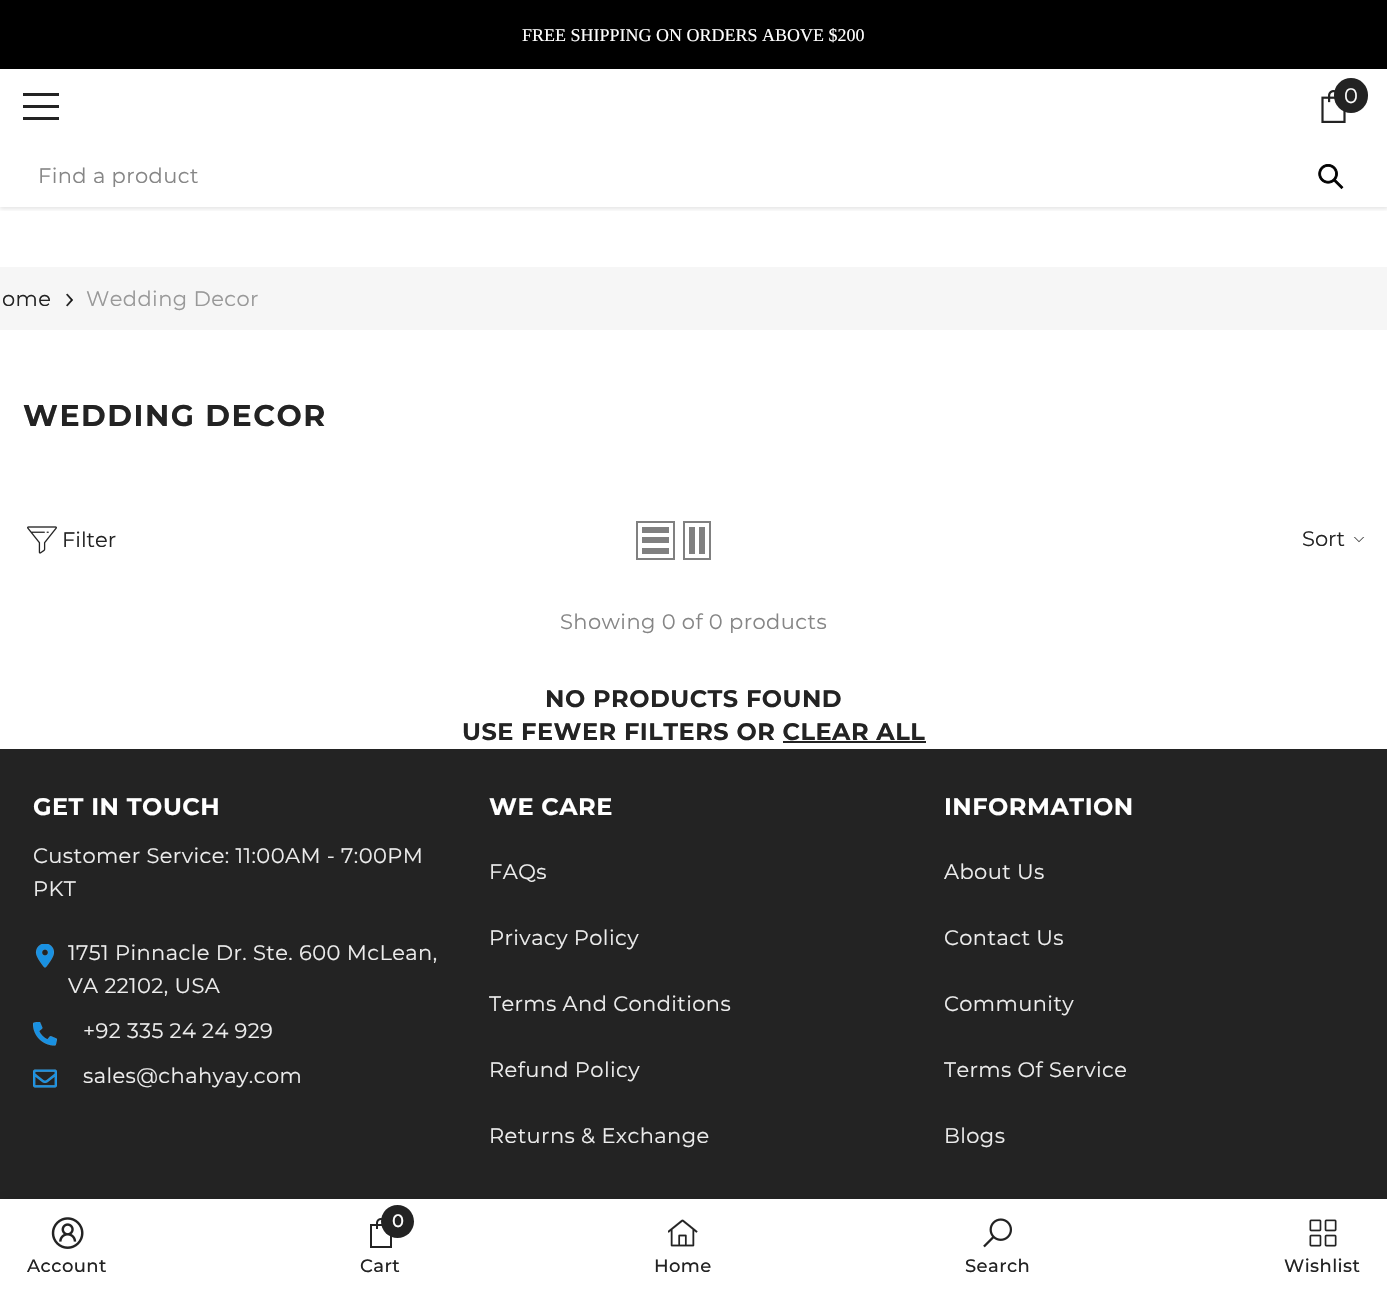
#include "include/core/SkBlurTypes.h"
#include "include/core/SkCanvas.h"
#include "include/core/SkData.h"
#include "include/core/SkFont.h"
#include "include/core/SkFontMgr.h"
#include "include/core/SkImage.h"
#include "include/core/SkMaskFilter.h"
#include "include/core/SkPaint.h"
#include "include/core/SkPathBuilder.h"
#include "include/core/SkTextBlob.h"
#include "include/effects/SkDashPathEffect.h"
#include "include/effects/SkGradientShader.h"
#include "include/utils/SkParsePath.h"

extern sk_sp<SkFontMgr> fontMgr;

void draw(SkCanvas* canvas) {
  SkPaint p;
  p.setAntiAlias(true);
  auto spacedText = [&](const char* s, float x, float y, const SkFont& font, const SkPaint& ink, float letter, float word) {
    std::vector<SkGlyphID> glyphs(font.countText(s, strlen(s), SkTextEncoding::kUTF8));
    std::vector<float> xs(glyphs.size());
    font.textToGlyphs(s, strlen(s), SkTextEncoding::kUTF8, glyphs);
    font.getXPos(glyphs, xs, x);
    float extra = 0;
    for (size_t i = 0; i < glyphs.size(); i++) {
      xs[i] += extra;
      extra += letter + word * (glyphs[i] == font.unicharToGlyph(' '));
    }
    canvas->drawTextBlob(SkTextBlob::MakeFromPosHGlyphs(glyphs, xs, y, font), 0, 0, ink);
  };
  canvas->clear(SK_ColorWHITE);
  p.setColor(SK_ColorBLACK);
  canvas->drawRect(SkRect::MakeLTRB(0, 0, 1387, 69), p);
  canvas->save();
  canvas->clipRect(SkRect::MakeLTRB(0, 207, 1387, 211));
  p.setColor(SkColorSetARGB(26, 0, 0, 0));
  p.setMaskFilter(SkMaskFilter::MakeBlur(kNormal_SkBlurStyle, 2));
  canvas->drawRect(SkRect::MakeLTRB(0, 71, 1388, 209), p);
  p.setMaskFilter(nullptr);
  canvas->restore();
  p.setColor(SkColorSetRGB(35, 35, 35));
  canvas->drawRect(SkRect::MakeLTRB(23, 105, 59, 108), p);
  canvas->drawRect(SkRect::MakeLTRB(23, 93, 59, 96), p);
  canvas->drawRect(SkRect::MakeLTRB(23, 117, 59, 120), p);
  canvas->drawImageRect(SkImages::DeferredFromEncodedData(SkData::MakeFromFileName("images/1.png")), SkRect::MakeLTRB(1321, 90, 1346, 123), SkSamplingOptions());
  canvas->drawRoundRect(SkRect::MakeLTRB(1334, 78, 1368, 113), 17, 17, p);
  canvas->drawImageRect(SkImages::DeferredFromEncodedData(SkData::MakeFromFileName("images/2.png")), SkRect::MakeLTRB(1318, 164, 1344, 190), SkSamplingOptions());
  p.setColor(SkColorSetRGB(246, 246, 246));
  canvas->drawRect(SkRect::MakeLTRB(0, 267, 1387, 330), p);
  canvas->drawImageRect(SkImages::DeferredFromEncodedData(SkData::MakeFromFileName("images/3.png")), SkRect::MakeLTRB(66, 293, 73, 307), SkSamplingOptions());
  canvas->drawImageRect(SkImages::DeferredFromEncodedData(SkData::MakeFromFileName("images/4.png")), SkRect::MakeLTRB(27, 526, 57, 554), SkSamplingOptions());
  p.setStyle(SkPaint::kStroke_Style);
  p.setStrokeWidth(2);
  p.setColor(SkColorSetRGB(128, 128, 128));
  canvas->drawRect(SkRect::MakeLTRB(637, 522, 674, 559), p);
  p.setStyle(SkPaint::kFill_Style);
  canvas->drawRect(SkRect::MakeLTRB(642, 548, 669, 554), p);
  canvas->drawRect(SkRect::MakeLTRB(642, 537, 669, 543), p);
  canvas->drawRect(SkRect::MakeLTRB(642, 527, 669, 533), p);
  p.setStyle(SkPaint::kStroke_Style);
  canvas->drawRect(SkRect::MakeLTRB(684, 522, 710, 559), p);
  p.setStyle(SkPaint::kFill_Style);
  canvas->drawRect(SkRect::MakeLTRB(699, 527, 705, 554), p);
  canvas->drawRect(SkRect::MakeLTRB(689, 527, 695, 554), p);
  canvas->drawImageRect(SkImages::DeferredFromEncodedData(SkData::MakeFromFileName("images/5.png")), SkRect::MakeLTRB(1353, 537, 1365, 543), SkSamplingOptions());
  p.setColor(SkColorSetRGB(35, 35, 35));
  canvas->drawRect(SkRect::MakeLTRB(783, 741, 926, 743), p);
  canvas->drawRect(SkRect::MakeLTRB(0, 749, 1387, 1199), p);
  canvas->drawImageRect(SkImages::DeferredFromEncodedData(SkData::MakeFromFileName("images/6.png")), SkRect::MakeLTRB(35, 944, 54, 968), SkSamplingOptions());
  canvas->drawImageRect(SkImages::DeferredFromEncodedData(SkData::MakeFromFileName("images/7.png")), SkRect::MakeLTRB(33, 1022, 57, 1046), SkSamplingOptions());
  canvas->drawImageRect(SkImages::DeferredFromEncodedData(SkData::MakeFromFileName("images/8.png")), SkRect::MakeLTRB(33, 1069, 57, 1088), SkSamplingOptions());
  p.setColor(SkColorSetARGB(31, 0, 0, 0));
  p.setMaskFilter(SkMaskFilter::MakeBlur(kNormal_SkBlurStyle, 7));
  canvas->drawRect(SkRect::MakeLTRB(0, 1199, 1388, 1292), p);
  p.setMaskFilter(nullptr);
  p.setColor(SK_ColorWHITE);
  canvas->drawRect(SkRect::MakeLTRB(0, 1199, 1387, 1291), p);
  canvas->drawImageRect(SkImages::DeferredFromEncodedData(SkData::MakeFromFileName("images/9.png")), SkRect::MakeLTRB(51, 1217, 84, 1249), SkSamplingOptions());
  canvas->drawImageRect(SkImages::DeferredFromEncodedData(SkData::MakeFromFileName("images/10.png")), SkRect::MakeLTRB(370, 1218, 392, 1248), SkSamplingOptions());
  p.setColor(SkColorSetRGB(35, 35, 35));
  canvas->drawCircle(397.5f, 1221.5f, 16.5f, p);
  canvas->drawImageRect(SkImages::DeferredFromEncodedData(SkData::MakeFromFileName("images/11.png")), SkRect::MakeLTRB(668, 1219, 698, 1247), SkSamplingOptions());
  canvas->drawImageRect(SkImages::DeferredFromEncodedData(SkData::MakeFromFileName("images/12.png")), SkRect::MakeLTRB(983, 1218, 1012, 1248), SkSamplingOptions());
  canvas->drawImageRect(SkImages::DeferredFromEncodedData(SkData::MakeFromFileName("images/13.png")), SkRect::MakeLTRB(1309, 1219, 1337, 1247), SkSamplingOptions());
  SkFont font1(fontMgr->matchFamilyStyle("Liberation Serif", SkFontStyle::Normal()), 18);
  font1.setSubpixel(true);
  p.setColor(SK_ColorWHITE);
  canvas->drawString("FREE SHIPPING ON ORDERS ABOVE $200", 522, 41, font1, p);
  SkFont font2(fontMgr->matchFamilyStyle("Montserrat", SkFontStyle::Normal()), 21);
  font2.setSubpixel(true);
  canvas->drawString("0", 1344, 103, font2, p);
  p.setColor(SkColorSetRGB(134, 134, 134));
  spacedText("Find a product", 38, 183, font2, p, 0.4f, 0);
  p.setColor(SkColorSetRGB(35, 35, 35));
  spacedText("ome", 2, 306, font2, p, 0.4f, 0);
  p.setColor(SkColorSetRGB(153, 153, 153));
  spacedText("Wedding Decor", 86, 306, font2, p, 0.4f, 0);
  SkFont font3(fontMgr->matchFamilyStyle("Montserrat", SkFontStyle::Bold()), 30);
  font3.setSubpixel(true);
  p.setColor(SkColorSetRGB(35, 35, 35));
  spacedText("WEDDING DECOR", 23, 426, font3, p, 1.5f, 0);
  canvas->drawString("Filter", 62, 547, font2, p);
  canvas->drawString("Sort", 1302, 546, font2, p);
  p.setColor(SkColorSetRGB(134, 134, 134));
  spacedText("Showing 0 of 0 products", 560, 629, font2, p, 0.4f, 0);
  SkFont font4(fontMgr->matchFamilyStyle("Montserrat", SkFontStyle::Bold()), 24);
  font4.setSubpixel(true);
  p.setColor(SkColorSetRGB(35, 35, 35));
  spacedText("NO PRODUCTS FOUND", 545, 707, font4, p, 0.5f, 0);
  spacedText("USE FEWER FILTERS OR CLEAR ALL", 462, 740, font4, p, 0.5f, 0);
  p.setColor(SK_ColorWHITE);
  spacedText("GET IN TOUCH", 33, 815, font4, p, 0.5f, 0);
  p.setColor(SkColorSetRGB(237, 237, 237));
  spacedText("Customer Service: 11:00AM - 7:00PM", 33, 863, font2, p, 0.4f, 0);
  spacedText("PKT", 33, 896, font2, p, 0.4f, 0);
  spacedText("1751 Pinnacle Dr. Ste. 600 McLean,", 68, 960, font2, p, 0.4f, 0);
  spacedText("VA 22102, USA", 68, 993, font2, p, 0.4f, 0);
  spacedText("+92 335 24 24 929", 83, 1038, font2, p, 0.4f, 0);
  spacedText("sales@chahyay.com", 83, 1083, font2, p, 0.4f, 0);
  p.setColor(SK_ColorWHITE);
  spacedText("WE CARE", 489, 815, font4, p, 0.5f, 0);
  p.setColor(SkColorSetRGB(237, 237, 237));
  spacedText("FAQs", 489, 879, font2, p, 0.4f, 0);
  spacedText("Privacy Policy", 489, 945, font2, p, 0.4f, 0);
  spacedText("Terms And Conditions", 489, 1011, font2, p, 0.4f, 0);
  spacedText("Refund Policy", 489, 1077, font2, p, 0.4f, 0);
  spacedText("Returns & Exchange", 489, 1143, font2, p, 0.4f, 0);
  p.setColor(SK_ColorWHITE);
  spacedText("INFORMATION", 944, 815, font4, p, 0.5f, 0);
  p.setColor(SkColorSetRGB(237, 237, 237));
  spacedText("About Us", 944, 879, font2, p, 0.4f, 0);
  spacedText("Contact Us", 944, 945, font2, p, 0.4f, 0);
  spacedText("Community", 944, 1011, font2, p, 0.4f, 0);
  spacedText("Terms Of Service", 944, 1077, font2, p, 0.4f, 0);
  spacedText("Blogs", 944, 1143, font2, p, 0.4f, 0);
  SkFont font5(fontMgr->matchFamilyStyle("Montserrat", SkFontStyle(500, SkFontStyle::kNormal_Width, SkFontStyle::kUpright_Slant)), 18);
  font5.setSubpixel(true);
  p.setColor(SkColorSetRGB(35, 35, 35));
  spacedText("Account", 27, 1272, font5, p, 0.4f, 0);
  p.setColor(SK_ColorWHITE);
  canvas->drawString("0", 392, 1227, font5, p);
  p.setColor(SkColorSetRGB(35, 35, 35));
  spacedText("Cart", 360, 1272, font5, p, 0.4f, 0);
  spacedText("Home", 654, 1272, font5, p, 0.4f, 0);
  spacedText("Search", 965, 1272, font5, p, 0.4f, 0);
  spacedText("Wishlist", 1284, 1272, font5, p, 0.4f, 0);
}
